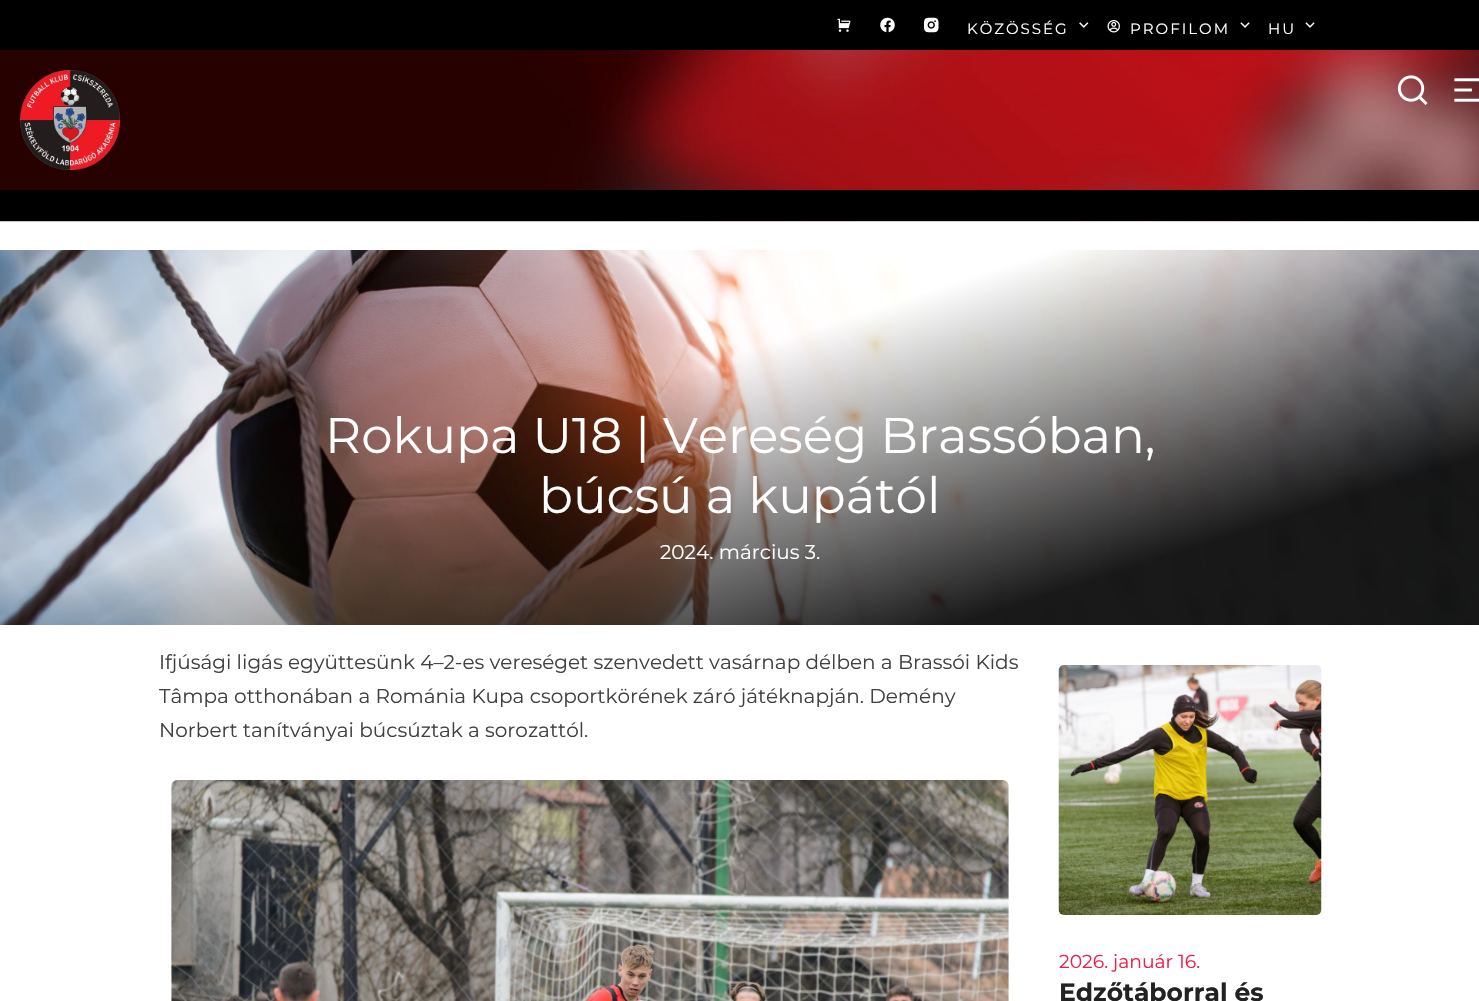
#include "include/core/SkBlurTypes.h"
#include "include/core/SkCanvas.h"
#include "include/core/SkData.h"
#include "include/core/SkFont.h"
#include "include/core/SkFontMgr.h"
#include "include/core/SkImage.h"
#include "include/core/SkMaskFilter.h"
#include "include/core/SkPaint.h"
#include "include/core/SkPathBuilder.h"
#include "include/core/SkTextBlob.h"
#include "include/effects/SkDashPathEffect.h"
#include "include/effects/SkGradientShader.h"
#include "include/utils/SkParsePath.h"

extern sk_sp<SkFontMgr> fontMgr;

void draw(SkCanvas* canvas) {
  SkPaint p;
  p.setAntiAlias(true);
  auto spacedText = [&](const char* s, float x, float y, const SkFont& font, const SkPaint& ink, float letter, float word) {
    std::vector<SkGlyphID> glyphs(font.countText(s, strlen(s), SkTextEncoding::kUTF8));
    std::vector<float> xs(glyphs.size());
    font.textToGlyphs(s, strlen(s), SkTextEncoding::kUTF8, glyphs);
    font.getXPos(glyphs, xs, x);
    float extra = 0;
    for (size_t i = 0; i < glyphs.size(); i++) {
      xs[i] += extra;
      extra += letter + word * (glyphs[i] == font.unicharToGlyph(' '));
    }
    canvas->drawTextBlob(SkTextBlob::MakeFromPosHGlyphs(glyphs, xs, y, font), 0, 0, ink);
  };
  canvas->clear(SK_ColorWHITE);
  p.setColor(SK_ColorBLACK);
  canvas->drawRect(SkRect::MakeLTRB(0, 0, 1479, 50), p);
  canvas->drawImageRect(SkImages::DeferredFromEncodedData(SkData::MakeFromFileName("images/1.png")), SkRect::MakeLTRB(837, 18, 851, 32), SkSamplingOptions());
  canvas->drawImageRect(SkImages::DeferredFromEncodedData(SkData::MakeFromFileName("images/2.png")), SkRect::MakeLTRB(880, 17, 895, 33), SkSamplingOptions());
  canvas->drawImageRect(SkImages::DeferredFromEncodedData(SkData::MakeFromFileName("images/3.png")), SkRect::MakeLTRB(923, 17, 939, 33), SkSamplingOptions());
  canvas->drawImageRect(SkImages::DeferredFromEncodedData(SkData::MakeFromFileName("images/4.png")), SkRect::MakeLTRB(1079, 22, 1089, 28), SkSamplingOptions());
  canvas->drawImageRect(SkImages::DeferredFromEncodedData(SkData::MakeFromFileName("images/5.png")), SkRect::MakeLTRB(1107, 20, 1120, 33), SkSamplingOptions());
  canvas->drawImageRect(SkImages::DeferredFromEncodedData(SkData::MakeFromFileName("images/6.png")), SkRect::MakeLTRB(1240, 22, 1250, 28), SkSamplingOptions());
  canvas->drawImageRect(SkImages::DeferredFromEncodedData(SkData::MakeFromFileName("images/6.png")), SkRect::MakeLTRB(1305, 22, 1315, 28), SkSamplingOptions());
  canvas->drawImageRect(SkImages::DeferredFromEncodedData(SkData::MakeFromFileName("images/7.png")), SkRect::MakeLTRB(0, 50, 1479, 222), SkSamplingOptions());
  canvas->drawRect(SkRect::MakeLTRB(0, 190, 1479, 221), p);
  canvas->drawImageRect(SkImages::DeferredFromEncodedData(SkData::MakeFromFileName("images/8.png")), SkRect::MakeLTRB(20, 70, 120, 170), SkSamplingOptions());
  canvas->drawImageRect(SkImages::DeferredFromEncodedData(SkData::MakeFromFileName("images/9.png")), SkRect::MakeLTRB(1397, 75, 1428, 105), SkSamplingOptions());
  canvas->drawImageRect(SkImages::DeferredFromEncodedData(SkData::MakeFromFileName("images/10.png")), SkRect::MakeLTRB(1454, 78, 1479, 102), SkSamplingOptions());
  canvas->drawImageRect(SkImages::DeferredFromEncodedData(SkData::MakeFromFileName("images/11.png")), SkRect::MakeLTRB(0, 250, 1479, 625), SkSamplingOptions());
  canvas->drawImageRect(SkImages::DeferredFromEncodedData(SkData::MakeFromFileName("images/12.png")), SkRect::MakeLTRB(171, 780, 1009, 1001), SkSamplingOptions());
  canvas->drawImageRect(SkImages::DeferredFromEncodedData(SkData::MakeFromFileName("images/13.png")), SkRect::MakeLTRB(1058, 665, 1322, 915), SkSamplingOptions());
  SkFont font1(fontMgr->matchFamilyStyle("Montserrat", SkFontStyle::Normal()), 15);
  font1.setSubpixel(true);
  p.setColor(SK_ColorWHITE);
  spacedText("KÖZÖSSÉG", 967, 34, font1, p, 2, 0);
  spacedText("PROFILOM", 1130, 34, font1, p, 2, 0);
  spacedText("HU", 1268, 34, font1, p, 2, 0);
  SkFont font2(fontMgr->matchFamilyStyle("Montserrat", SkFontStyle::Normal()), 50);
  font2.setSubpixel(true);
  canvas->drawString("Rokupa U18 | Vereség Brassóban,", 325, 453, font2, p);
  canvas->drawString("búcsú a kupától", 539, 513, font2, p);
  SkFont font3(fontMgr->matchFamilyStyle("Montserrat", SkFontStyle::Normal()), 20);
  font3.setSubpixel(true);
  canvas->drawString("2024. március 3.", 660, 559, font3, p);
  p.setColor(SkColorSetRGB(64, 64, 64));
  canvas->drawString("Ifjúsági ligás együttesünk 4–2-es vereséget szenvedett vasárnap délben a Brassói Kids", 159, 669, font3, p);
  canvas->drawString("Tâmpa otthonában a Románia Kupa csoportkörének záró játéknapján. Demény", 159, 703, font3, p);
  canvas->drawString("Norbert tanítványai búcsúztak a sorozattól.", 159, 737, font3, p);
  SkFont font4(fontMgr->matchFamilyStyle("Montserrat", SkFontStyle::Normal()), 18.75f);
  font4.setSubpixel(true);
  p.setColor(SkColorSetRGB(238, 30, 70));
  canvas->drawString("2026. január 16.", 1059, 968, font4, p);
  SkFont font5(fontMgr->matchFamilyStyle("Montserrat", SkFontStyle::Bold()), 25);
  font5.setSubpixel(true);
  p.setColor(SkColorSetRGB(34, 34, 34));
  canvas->drawString("Edzőtáborral és", 1059, 1001, font5, p);
}
